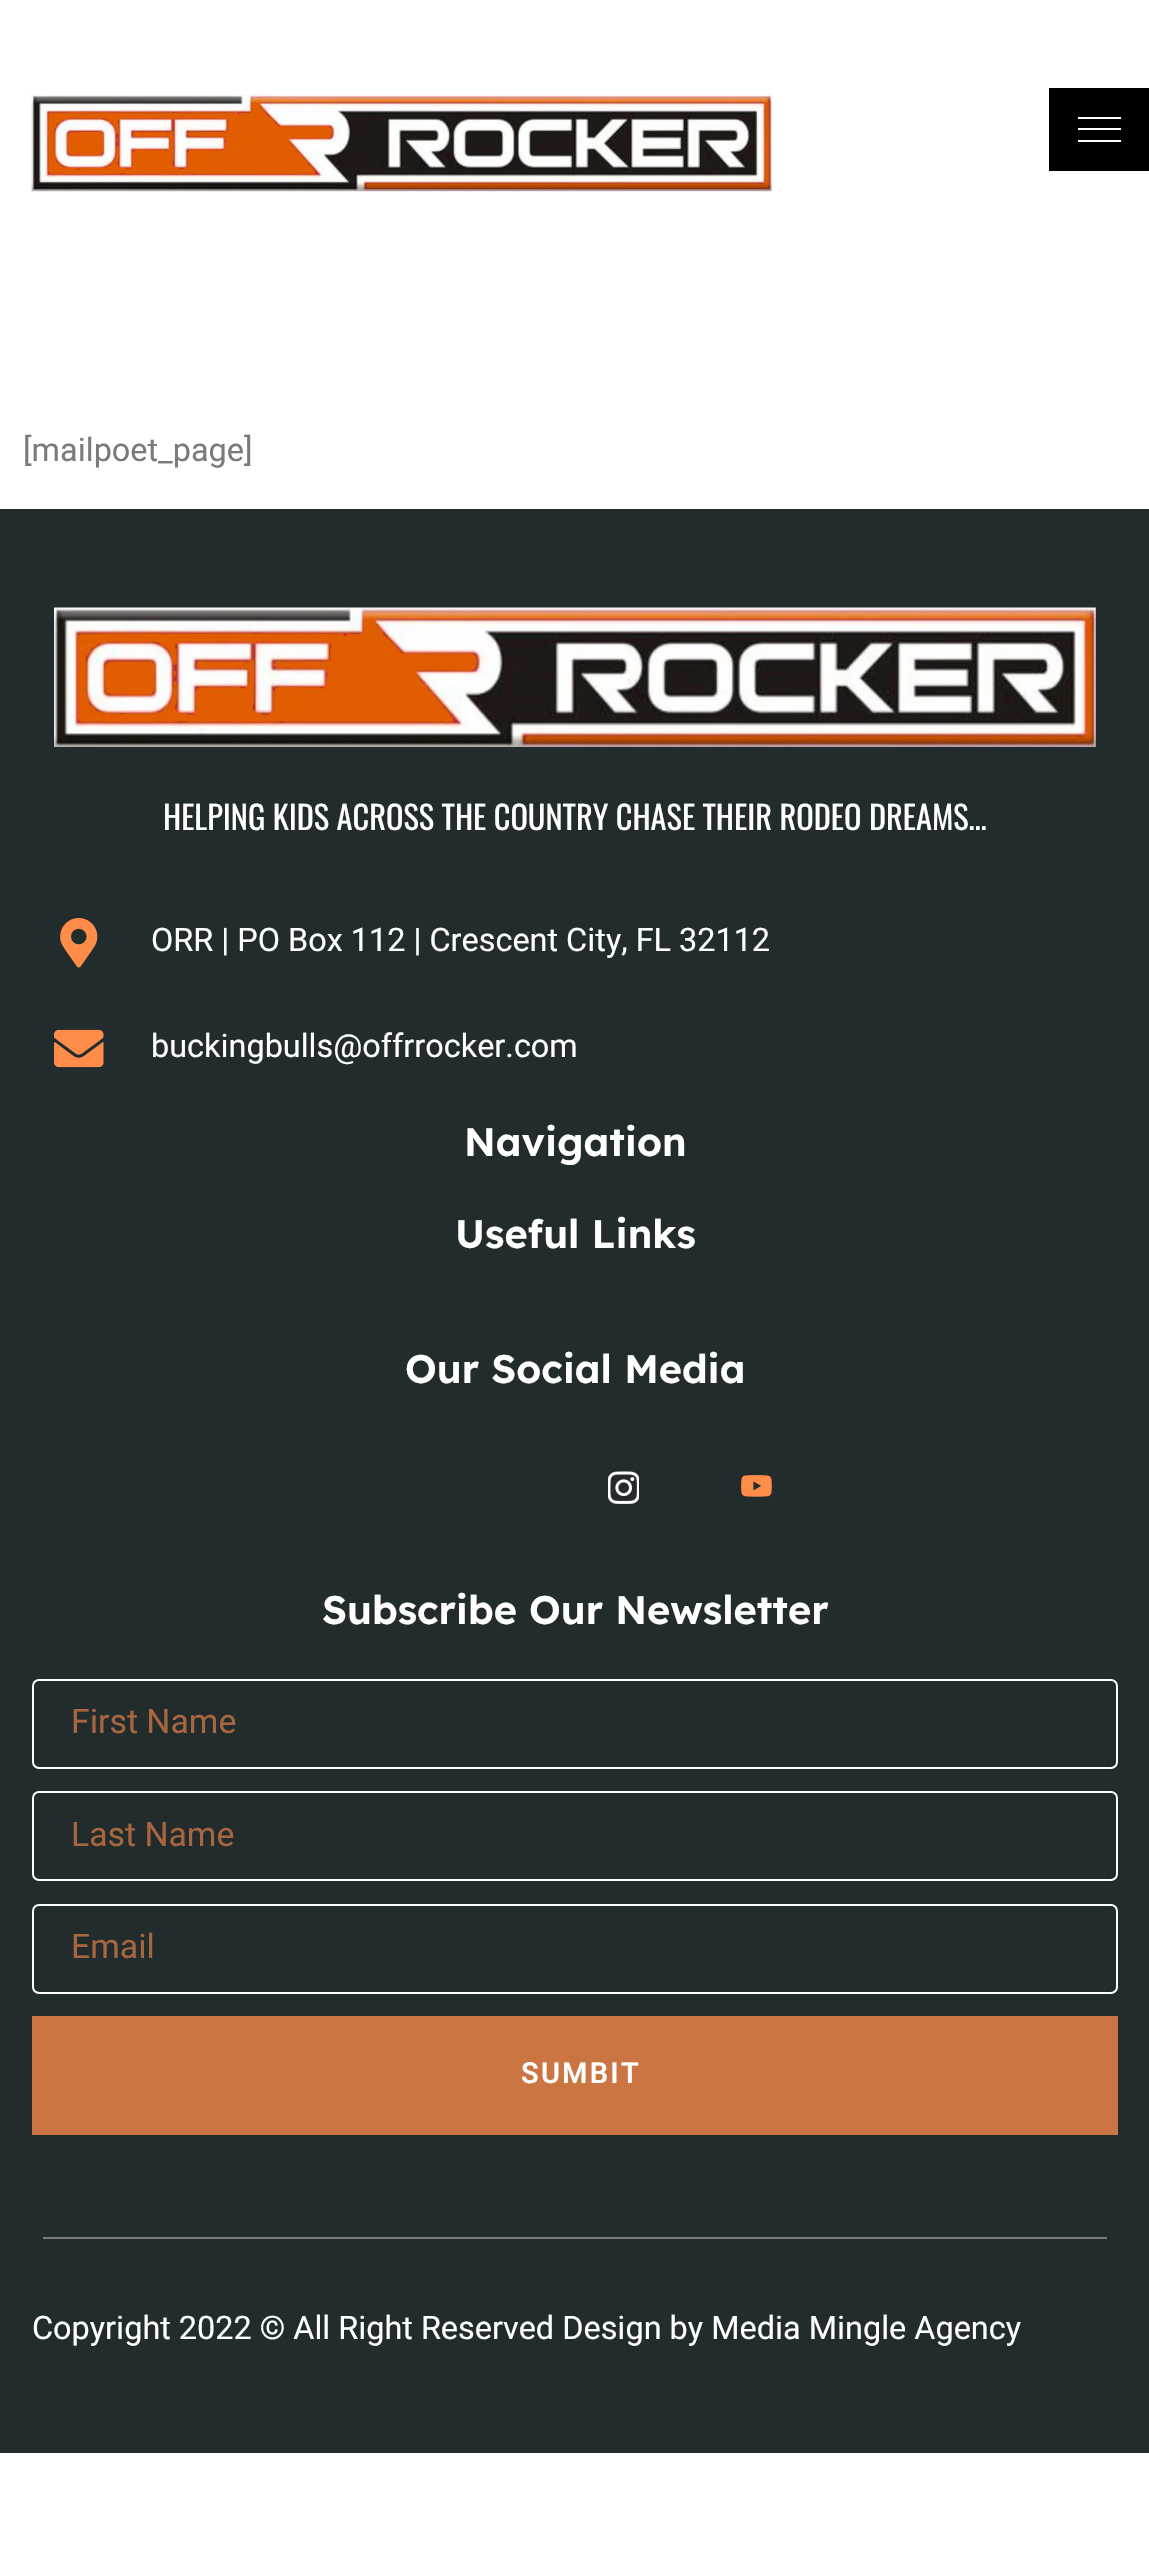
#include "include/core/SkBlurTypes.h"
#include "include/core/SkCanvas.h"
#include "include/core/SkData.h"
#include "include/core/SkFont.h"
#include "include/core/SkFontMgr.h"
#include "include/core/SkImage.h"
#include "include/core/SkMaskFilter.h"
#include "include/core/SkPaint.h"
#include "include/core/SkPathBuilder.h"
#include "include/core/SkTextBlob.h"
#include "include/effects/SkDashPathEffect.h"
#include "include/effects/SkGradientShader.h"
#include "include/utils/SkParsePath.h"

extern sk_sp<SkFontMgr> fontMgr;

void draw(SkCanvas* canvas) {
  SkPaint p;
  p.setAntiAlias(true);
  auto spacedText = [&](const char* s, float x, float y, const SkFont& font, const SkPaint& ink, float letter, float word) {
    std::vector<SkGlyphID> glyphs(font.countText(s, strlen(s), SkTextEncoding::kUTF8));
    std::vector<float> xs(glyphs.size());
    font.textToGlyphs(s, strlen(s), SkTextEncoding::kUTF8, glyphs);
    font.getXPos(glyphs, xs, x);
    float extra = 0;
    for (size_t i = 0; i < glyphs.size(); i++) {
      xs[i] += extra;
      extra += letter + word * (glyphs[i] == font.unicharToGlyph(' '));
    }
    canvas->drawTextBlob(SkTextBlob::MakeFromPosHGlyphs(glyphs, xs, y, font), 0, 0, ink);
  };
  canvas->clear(SK_ColorWHITE);
  canvas->drawImageRect(SkImages::DeferredFromEncodedData(SkData::MakeFromFileName("images/1.png")), SkRect::MakeLTRB(31, 94, 772, 192), SkSamplingOptions());
  p.setColor(SK_ColorBLACK);
  canvas->drawRect(SkRect::MakeLTRB(1049, 88, 1149, 171), p);
  p.setColor(SK_ColorWHITE);
  canvas->drawRect(SkRect::MakeLTRB(1078, 117, 1121, 119), p);
  canvas->drawRect(SkRect::MakeLTRB(1078, 128, 1121, 130), p);
  canvas->drawRect(SkRect::MakeLTRB(1078, 140, 1121, 142), p);
  p.setColor(SkColorSetRGB(34, 44, 45));
  canvas->drawRect(SkRect::MakeLTRB(0, 509, 1149, 2453), p);
  canvas->drawImageRect(SkImages::DeferredFromEncodedData(SkData::MakeFromFileName("images/2.png")), SkRect::MakeLTRB(54, 607, 1096, 747), SkSamplingOptions());
  canvas->drawImageRect(SkImages::DeferredFromEncodedData(SkData::MakeFromFileName("images/3.png")), SkRect::MakeLTRB(60, 918, 98, 968), SkSamplingOptions());
  canvas->drawImageRect(SkImages::DeferredFromEncodedData(SkData::MakeFromFileName("images/4.png")), SkRect::MakeLTRB(54, 1029, 104, 1068), SkSamplingOptions());
  canvas->drawImageRect(SkImages::DeferredFromEncodedData(SkData::MakeFromFileName("images/5.png")), SkRect::MakeLTRB(608, 1471, 639, 1504), SkSamplingOptions());
  canvas->drawImageRect(SkImages::DeferredFromEncodedData(SkData::MakeFromFileName("images/6.png")), SkRect::MakeLTRB(741, 1475, 772, 1497), SkSamplingOptions());
  p.setStyle(SkPaint::kStroke_Style);
  p.setStrokeWidth(2);
  p.setColor(SK_ColorWHITE);
  canvas->drawRoundRect(SkRect::MakeLTRB(33, 1680, 1117, 1768), 6, 6, p);
  canvas->drawRoundRect(SkRect::MakeLTRB(33, 1792, 1117, 1880), 6, 6, p);
  canvas->drawRoundRect(SkRect::MakeLTRB(33, 1905, 1117, 1993), 6, 6, p);
  p.setStyle(SkPaint::kFill_Style);
  p.setColor(SkColorSetRGB(202, 117, 66));
  canvas->drawRect(SkRect::MakeLTRB(32, 2016, 1118, 2135), p);
  p.setColor(SkColorSetRGB(122, 122, 122));
  canvas->drawRect(SkRect::MakeLTRB(43, 2237, 1107, 2239), p);
  SkFont font1(fontMgr->matchFamilyStyle("Heebo", SkFontStyle::Normal()), 32.4f);
  font1.setSubpixel(true);
  canvas->drawString("[mailpoet_page]", 23, 461, font1, p);
  SkFont font2(fontMgr->matchFamilyStyle("Oswald", SkFontStyle::Normal()), 32.4f);
  font2.setSubpixel(true);
  p.setColor(SK_ColorWHITE);
  canvas->drawString("HELPING KIDS ACROSS THE COUNTRY CHASE THEIR RODEO DREAMS…", 163, 830, font2, p);
  canvas->drawString("ORR | PO Box 112 | Crescent City, FL 32112", 151, 951, font1, p);
  canvas->drawString("buckingbulls@offrrocker.com", 151, 1057, font1, p);
  SkFont font3(fontMgr->matchFamilyStyle("Lexend Deca", SkFontStyle(600, SkFontStyle::kNormal_Width, SkFontStyle::kUpright_Slant)), 39.6f);
  font3.setSubpixel(true);
  canvas->drawString("Navigation", 464, 1156, font3, p);
  canvas->drawString("Useful Links", 455, 1248, font3, p);
  canvas->drawString("Our Social Media", 405, 1383, font3, p);
  canvas->drawString("Subscribe Our Newsletter", 322, 1624, font3, p);
  SkFont font4(fontMgr->matchFamilyStyle("Heebo", SkFontStyle::Normal()), 33.75f);
  font4.setSubpixel(true);
  p.setColor(SkColorSetRGB(167, 102, 62));
  canvas->drawString("First Name", 71, 1733, font4, p);
  canvas->drawString("Last Name", 71, 1846, font4, p);
  canvas->drawString("Email", 71, 1958, font4, p);
  SkFont font5(fontMgr->matchFamilyStyle("Heebo", SkFontStyle(600, SkFontStyle::kNormal_Width, SkFontStyle::kUpright_Slant)), 29);
  font5.setSubpixel(true);
  p.setColor(SK_ColorWHITE);
  spacedText("SUMBIT", 521, 2083, font5, p, 2.25f, 0);
  canvas->drawString("Copyright 2022 © All Right Reserved Design by Media Mingle Agency", 32, 2339, font1, p);
}
